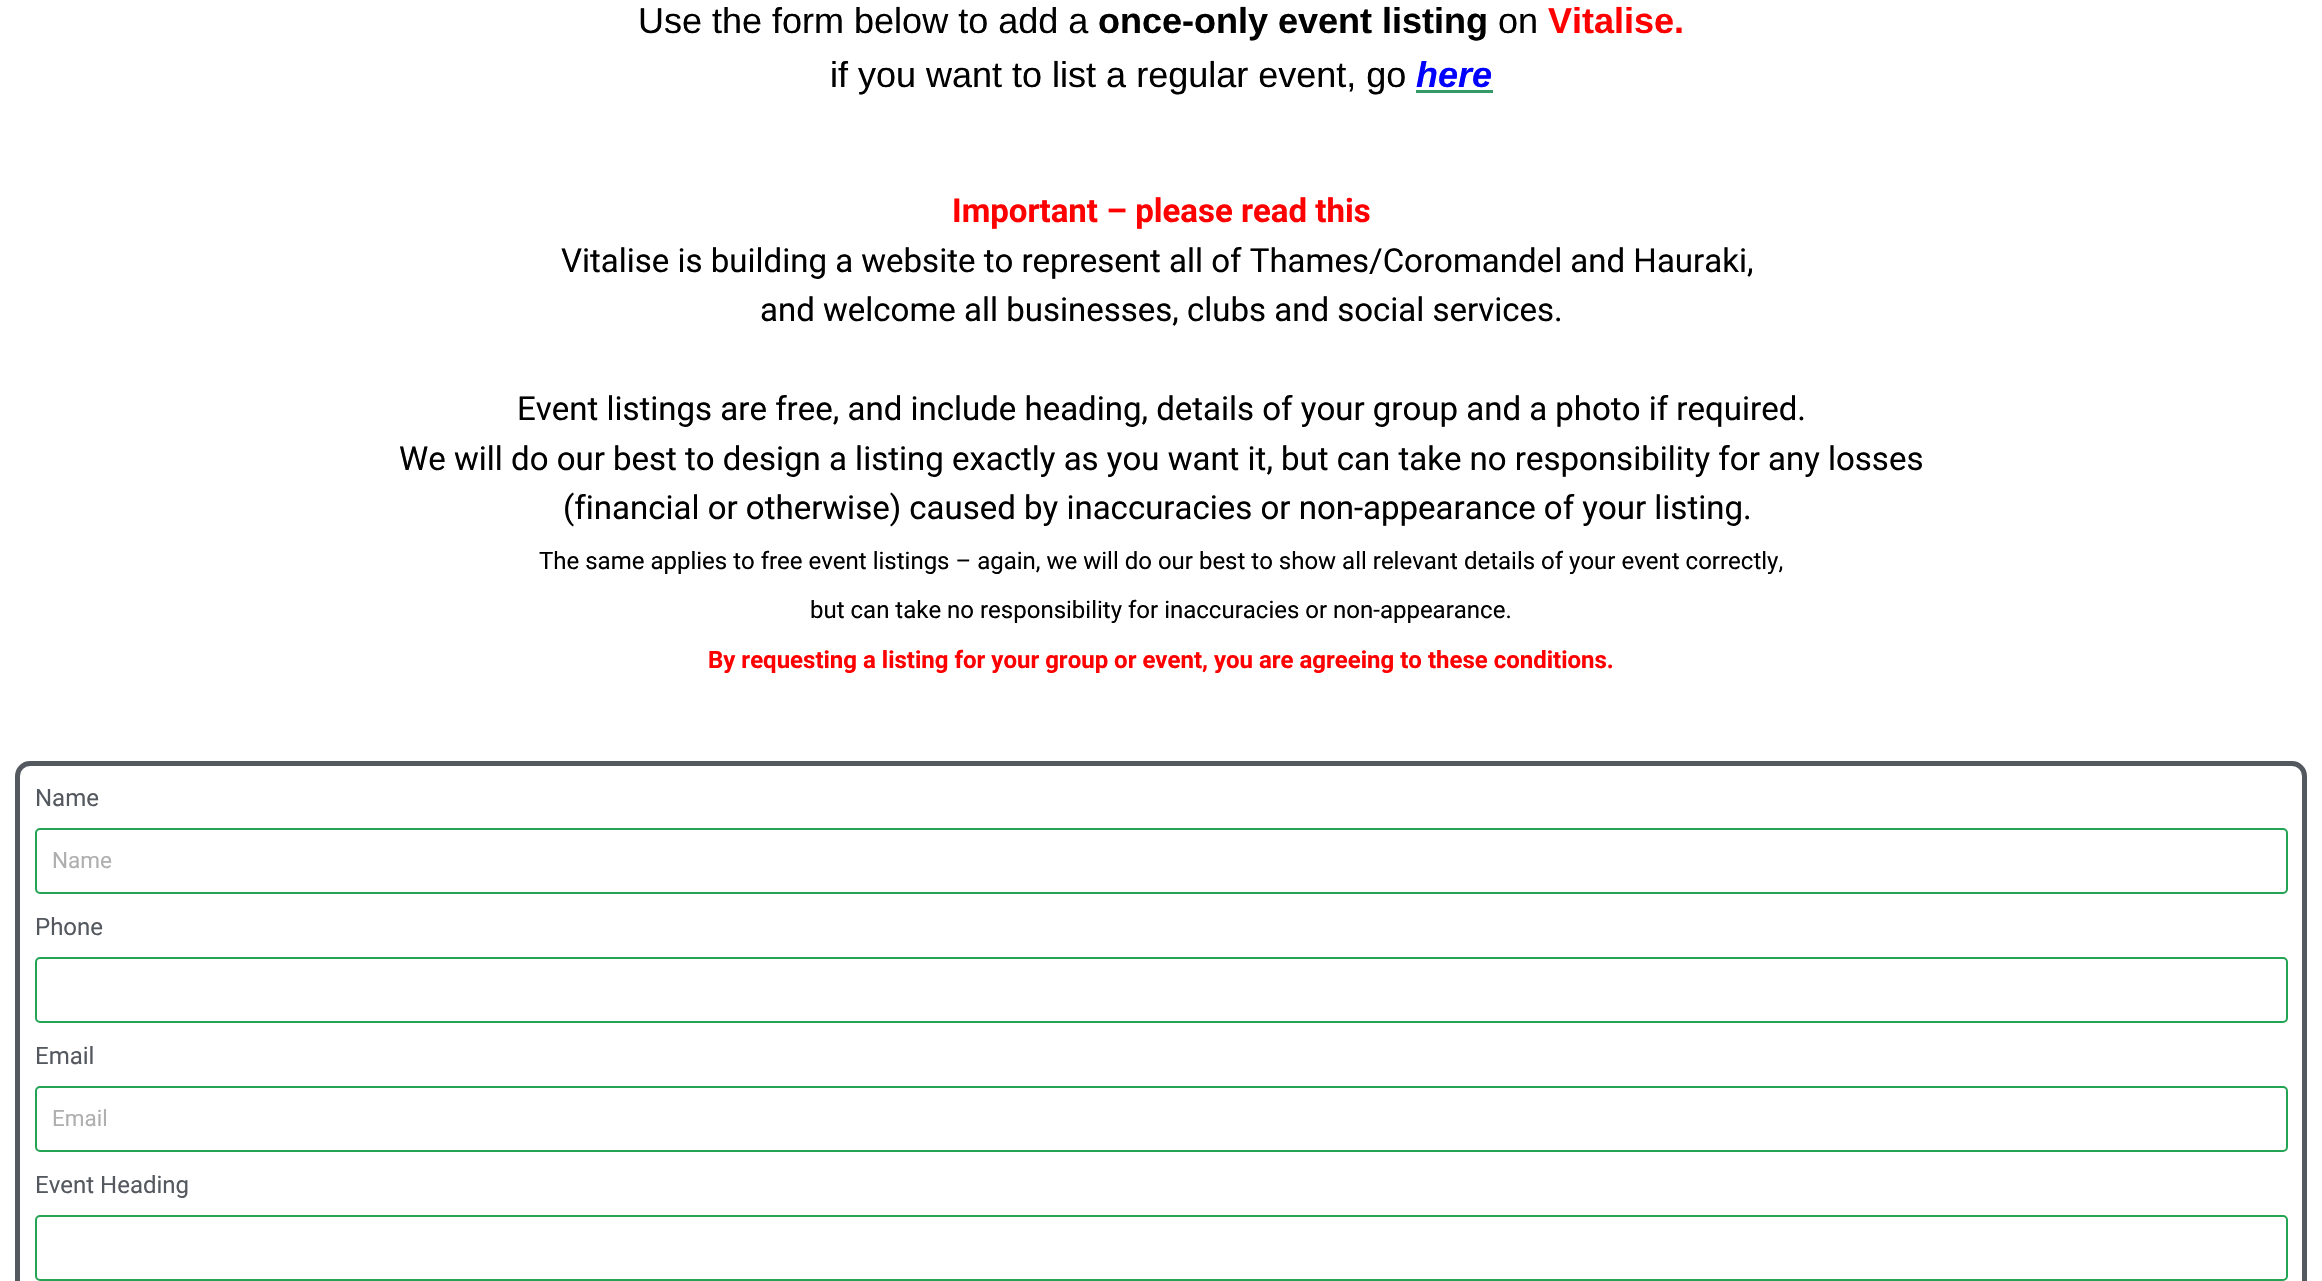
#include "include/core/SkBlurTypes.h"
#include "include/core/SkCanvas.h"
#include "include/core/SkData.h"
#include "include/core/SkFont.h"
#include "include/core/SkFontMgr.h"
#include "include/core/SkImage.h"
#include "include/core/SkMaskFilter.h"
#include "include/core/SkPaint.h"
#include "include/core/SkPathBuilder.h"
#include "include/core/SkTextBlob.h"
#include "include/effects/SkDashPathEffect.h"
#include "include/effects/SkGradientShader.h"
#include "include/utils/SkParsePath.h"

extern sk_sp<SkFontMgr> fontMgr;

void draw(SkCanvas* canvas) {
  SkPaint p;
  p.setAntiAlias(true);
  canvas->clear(SK_ColorWHITE);
  p.setColor(SkColorSetRGB(51, 153, 102));
  canvas->drawRect(SkRect::MakeLTRB(1416, 90, 1493, 93), p);
  p.setStyle(SkPaint::kStroke_Style);
  p.setStrokeWidth(5);
  p.setColor(SkColorSetRGB(84, 89, 95));
  canvas->drawRoundRect(SkRect::MakeLTRB(17.5f, 763.5f, 2304.5f, 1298.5f), 12.5f, 12.5f, p);
  p.setStrokeWidth(2);
  p.setColor(SkColorSetRGB(35, 164, 85));
  canvas->drawRoundRect(SkRect::MakeLTRB(36, 829, 2287, 893), 4, 4, p);
  canvas->drawRoundRect(SkRect::MakeLTRB(36, 958, 2287, 1022), 4, 4, p);
  canvas->drawRoundRect(SkRect::MakeLTRB(36, 1087, 2287, 1151), 4, 4, p);
  canvas->drawRoundRect(SkRect::MakeLTRB(36, 1216, 2287, 1280), 4, 4, p);
  SkFont font1(fontMgr->matchFamilyStyle("Liberation Sans", SkFontStyle::Normal()), 36);
  font1.setSubpixel(true);
  p.setStyle(SkPaint::kFill_Style);
  p.setColor(SK_ColorBLACK);
  canvas->drawString("Use the form below to add a", 638, 33, font1, p);
  SkFont font2(fontMgr->matchFamilyStyle("Liberation Sans", SkFontStyle::Bold()), 36);
  font2.setSubpixel(true);
  canvas->drawString("once-only event listing", 1098, 33, font2, p);
  canvas->drawString("on", 1498, 33, font1, p);
  p.setColor(SkColorSetRGB(255, 0, 0));
  canvas->drawString("Vitalise.", 1548, 33, font2, p);
  p.setColor(SK_ColorBLACK);
  canvas->drawString("if you want to list a regular event, go", 830, 87, font1, p);
  SkFont font3(fontMgr->matchFamilyStyle("Liberation Sans", SkFontStyle::BoldItalic()), 36);
  font3.setSubpixel(true);
  p.setColor(SkColorSetRGB(0, 0, 255));
  canvas->drawString("here", 1416, 87, font3, p);
  SkFont font4(fontMgr->matchFamilyStyle("Roboto", SkFontStyle::Bold()), 33);
  font4.setSubpixel(true);
  p.setColor(SkColorSetRGB(255, 0, 0));
  canvas->drawString("Important – please read this", 952, 222, font4, p);
  SkFont font5(fontMgr->matchFamilyStyle("Roboto", SkFontStyle::Normal()), 33);
  font5.setSubpixel(true);
  p.setColor(SK_ColorBLACK);
  canvas->drawString("Vitalise is building a website to represent all of Thames/Coromandel and Hauraki,", 561, 272, font5, p);
  canvas->drawString("and welcome all businesses, clubs and social services.", 760, 321, font5, p);
  canvas->drawString("Event listings are free, and include heading, details of your group and a photo if required.", 517, 420, font5, p);
  canvas->drawString("We will do our best to design a listing exactly as you want it, but can take no responsibility for any losses", 399, 470, font5, p);
  canvas->drawString("(financial or otherwise) caused by inaccuracies or non-appearance of your listing.", 563, 519, font5, p);
  SkFont font6(fontMgr->matchFamilyStyle("Roboto", SkFontStyle::Normal()), 24);
  font6.setSubpixel(true);
  canvas->drawString("The same applies to free event listings – again, we will do our best to show all relevant details of your event correctly,", 539, 569, font6, p);
  canvas->drawString("but can take no responsibility for inaccuracies or non-appearance.", 810, 618, font6, p);
  SkFont font7(fontMgr->matchFamilyStyle("Roboto", SkFontStyle::Bold()), 24);
  font7.setSubpixel(true);
  p.setColor(SkColorSetRGB(255, 0, 0));
  canvas->drawString("By requesting a listing for your group or event, you are agreeing to these conditions.", 708, 668, font7, p);
  p.setColor(SkColorSetRGB(84, 89, 95));
  canvas->drawString("Name", 35, 806, font6, p);
  SkFont font8(fontMgr->matchFamilyStyle("Roboto", SkFontStyle::Normal()), 22.5f);
  font8.setSubpixel(true);
  p.setColor(SkColorSetRGB(175, 175, 175));
  canvas->drawString("Name", 52, 868, font8, p);
  p.setColor(SkColorSetRGB(84, 89, 95));
  canvas->drawString("Phone", 35, 935, font6, p);
  canvas->drawString("Email", 35, 1064, font6, p);
  p.setColor(SkColorSetRGB(175, 175, 175));
  canvas->drawString("Email", 52, 1126, font8, p);
  p.setColor(SkColorSetRGB(84, 89, 95));
  canvas->drawString("Event Heading", 35, 1193, font6, p);
}
